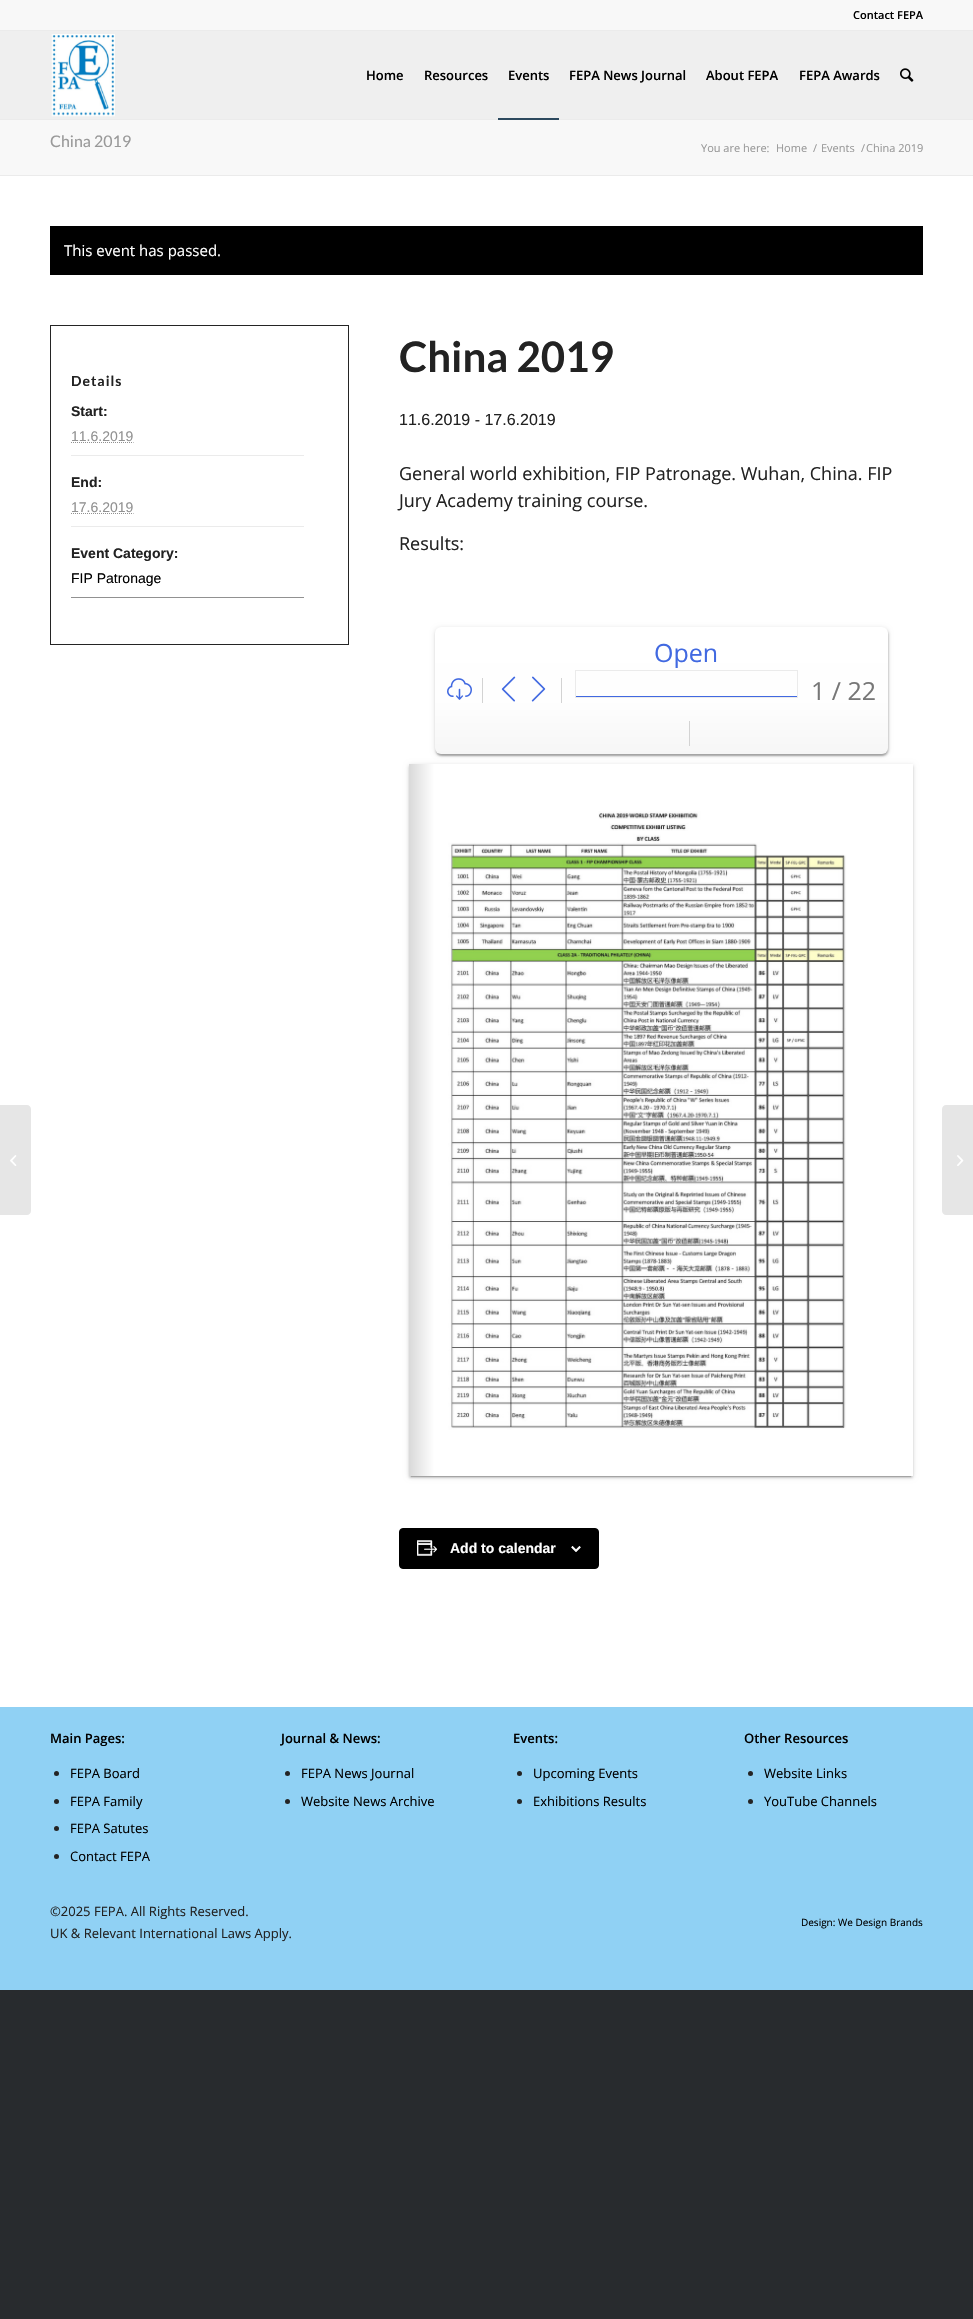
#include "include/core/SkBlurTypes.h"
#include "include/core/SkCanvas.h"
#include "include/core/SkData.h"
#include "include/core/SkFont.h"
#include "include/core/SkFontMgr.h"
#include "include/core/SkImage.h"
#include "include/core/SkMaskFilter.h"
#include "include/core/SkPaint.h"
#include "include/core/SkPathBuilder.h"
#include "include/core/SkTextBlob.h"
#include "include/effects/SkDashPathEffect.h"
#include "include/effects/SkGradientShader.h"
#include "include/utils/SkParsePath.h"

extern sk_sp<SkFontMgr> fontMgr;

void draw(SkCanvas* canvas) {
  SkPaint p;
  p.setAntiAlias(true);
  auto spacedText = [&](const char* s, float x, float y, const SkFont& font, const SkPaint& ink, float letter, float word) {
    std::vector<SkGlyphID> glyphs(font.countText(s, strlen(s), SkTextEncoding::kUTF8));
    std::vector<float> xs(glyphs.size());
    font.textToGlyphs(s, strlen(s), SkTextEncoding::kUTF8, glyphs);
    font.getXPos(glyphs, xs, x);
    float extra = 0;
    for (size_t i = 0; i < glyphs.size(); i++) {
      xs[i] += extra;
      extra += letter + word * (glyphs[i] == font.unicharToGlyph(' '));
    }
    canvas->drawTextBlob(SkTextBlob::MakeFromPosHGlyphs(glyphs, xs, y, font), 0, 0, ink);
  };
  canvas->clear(SkColorSetRGB(40, 43, 46));
  p.setColor(SkColorSetRGB(248, 248, 248));
  canvas->drawRect(SkRect::MakeLTRB(0, 0, 973, 30), p);
  p.setColor(SkColorSetRGB(235, 235, 235));
  canvas->drawRect(SkRect::MakeLTRB(0, 30, 973, 31), p);
  p.setColor(SkColorSetRGB(239, 239, 239));
  canvas->drawRect(SkRect::MakeLTRB(0, 31, 973, 119), p);
  p.setColor(SkColorSetRGB(235, 235, 235));
  canvas->drawRect(SkRect::MakeLTRB(0, 119, 973, 120), p);
  canvas->drawImageRect(SkImages::DeferredFromEncodedData(SkData::MakeFromFileName("images/1.png")), SkRect::MakeLTRB(51, 34, 115, 117), SkSamplingOptions());
  p.setColor(SkColorSetRGB(44, 73, 94));
  canvas->drawRect(SkRect::MakeLTRB(498, 118, 559, 120), p);
  canvas->drawImageRect(SkImages::DeferredFromEncodedData(SkData::MakeFromFileName("images/2.png")), SkRect::MakeLTRB(900, 68, 914, 82), SkSamplingOptions());
  p.setColor(SK_ColorWHITE);
  canvas->drawRect(SkRect::MakeLTRB(0, 176, 973, 1707), p);
  p.setColor(SkColorSetRGB(230, 230, 230));
  canvas->drawPath(SkPathBuilder().moveTo(0, 1105).lineTo(27, 1105).cubicTo(29, 1105, 31, 1107, 31, 1109).lineTo(31, 1211).cubicTo(31, 1213, 29, 1215, 27, 1215).lineTo(0, 1215).close().detach(), p);
  canvas->drawImageRect(SkImages::DeferredFromEncodedData(SkData::MakeFromFileName("images/3.png")), SkRect::MakeLTRB(10, 1155, 17, 1166), SkSamplingOptions());
  p.setColor(SkColorSetRGB(248, 248, 248));
  canvas->drawRect(SkRect::MakeLTRB(0, 120, 973, 175), p);
  p.setColor(SkColorSetRGB(235, 235, 235));
  canvas->drawRect(SkRect::MakeLTRB(0, 175, 973, 176), p);
  p.setColor(SK_ColorBLACK);
  canvas->drawRect(SkRect::MakeLTRB(50, 226, 923, 275), p);
  p.setStyle(SkPaint::kStroke_Style);
  p.setStrokeWidth(1);
  p.setColor(SkColorSetRGB(36, 36, 36));
  canvas->drawRect(SkRect::MakeLTRB(50.5f, 325.5f, 348.5f, 644.5f), p);
  p.setStyle(SkPaint::kFill_Style);
  p.setColor(SkColorSetRGB(235, 235, 235));
  canvas->drawRect(SkRect::MakeLTRB(71, 455, 304, 456), p);
  p.setStyle(SkPaint::kStroke_Style);
  p.setColor(SkColorSetRGB(145, 145, 145));
  p.setPathEffect(SkDashPathEffect::Make({{1, 1}}, 0));
  canvas->drawPath(SkPathBuilder().moveTo(71, 442.5f).lineTo(133.5f, 442.5f).detach(), p);
  p.setPathEffect(nullptr);
  p.setStyle(SkPaint::kFill_Style);
  p.setColor(SkColorSetRGB(235, 235, 235));
  canvas->drawRect(SkRect::MakeLTRB(71, 526, 304, 527), p);
  p.setStyle(SkPaint::kStroke_Style);
  p.setColor(SkColorSetRGB(145, 145, 145));
  p.setPathEffect(SkDashPathEffect::Make({{1, 1}}, 0));
  canvas->drawPath(SkPathBuilder().moveTo(71, 513.5f).lineTo(133.5f, 513.5f).detach(), p);
  p.setPathEffect(nullptr);
  p.setStyle(SkPaint::kFill_Style);
  canvas->drawRect(SkRect::MakeLTRB(71, 597, 304, 598), p);
  p.setColor(SkColorSetARGB(31, 0, 0, 0));
  p.setMaskFilter(SkMaskFilter::MakeBlur(kNormal_SkBlurStyle, 2.5f));
  canvas->drawRoundRect(SkRect::MakeLTRB(435, 628, 888, 755), 6, 6, p);
  p.setMaskFilter(nullptr);
  p.setColor(SkColorSetARGB(51, 0, 0, 0));
  p.setMaskFilter(SkMaskFilter::MakeBlur(kNormal_SkBlurStyle, 1));
  canvas->drawRoundRect(SkRect::MakeLTRB(436, 631, 887, 756), 5, 5, p);
  p.setMaskFilter(nullptr);
  p.setColor(SkColorSetARGB(36, 0, 0, 0));
  p.setMaskFilter(SkMaskFilter::MakeBlur(kNormal_SkBlurStyle, 1));
  canvas->drawRoundRect(SkRect::MakeLTRB(436, 629, 889, 756), 6, 6, p);
  p.setMaskFilter(nullptr);
  {
    const SkColor colors[] = {SK_ColorWHITE, SkColorSetRGB(254, 254, 254), SkColorSetRGB(246, 246, 246)};
    const float stops[] = {0, 0.57f, 1};
    const SkPoint ends[] = {{662, 627}, {662, 754}};
    p.setShader(SkGradientShader::MakeLinear(ends, colors, stops, 3, SkTileMode::kClamp));
    p.setAlpha(255);
  }
  canvas->drawRoundRect(SkRect::MakeLTRB(435, 627, 888, 754), 6, 6, p);
  p.setShader(nullptr);
  p.setColor(SkColorSetRGB(65, 105, 225));
  canvas->drawRect(SkRect::MakeLTRB(575, 696, 798, 697), p);
  p.setStyle(SkPaint::kStroke_Style);
  p.setColor(SkColorSetRGB(235, 235, 235));
  canvas->drawRect(SkRect::MakeLTRB(575.5f, 670.5f, 797.5f, 697.5f), p);
  p.setStyle(SkPaint::kFill_Style);
  p.setColor(SkColorSetRGB(211, 211, 211));
  canvas->drawRect(SkRect::MakeLTRB(689, 721, 690, 746), p);
  canvas->drawImageRect(SkImages::DeferredFromEncodedData(SkData::MakeFromFileName("images/4.png")), SkRect::MakeLTRB(447, 678, 472, 700), SkSamplingOptions());
  canvas->drawRect(SkRect::MakeLTRB(482, 678, 483, 703), p);
  canvas->drawImageRect(SkImages::DeferredFromEncodedData(SkData::MakeFromFileName("images/5.png")), SkRect::MakeLTRB(501, 676, 516, 702), SkSamplingOptions());
  canvas->drawImageRect(SkImages::DeferredFromEncodedData(SkData::MakeFromFileName("images/6.png")), SkRect::MakeLTRB(531, 676, 546, 702), SkSamplingOptions());
  canvas->drawRect(SkRect::MakeLTRB(561, 678, 562, 703), p);
  p.setColor(SkColorSetARGB(31, 0, 0, 0));
  p.setMaskFilter(SkMaskFilter::MakeBlur(kNormal_SkBlurStyle, 2.5f));
  canvas->drawRect(SkRect::MakeLTRB(409, 765, 913, 1477), p);
  p.setMaskFilter(nullptr);
  p.setColor(SkColorSetARGB(51, 0, 0, 0));
  p.setMaskFilter(SkMaskFilter::MakeBlur(kNormal_SkBlurStyle, 0.5f));
  canvas->drawRect(SkRect::MakeLTRB(411, 769, 911, 1477), p);
  p.setMaskFilter(nullptr);
  p.setColor(SkColorSetARGB(36, 0, 0, 0));
  p.setMaskFilter(SkMaskFilter::MakeBlur(kNormal_SkBlurStyle, 1));
  canvas->drawRect(SkRect::MakeLTRB(409, 766, 913, 1478), p);
  p.setMaskFilter(nullptr);
  canvas->drawImageRect(SkImages::DeferredFromEncodedData(SkData::MakeFromFileName("images/7.png")), SkRect::MakeLTRB(409, 764, 913, 1476), SkSamplingOptions());
  p.setColor(SK_ColorBLACK);
  canvas->drawRoundRect(SkRect::MakeLTRB(399.5f, 1528.5f, 598.5f, 1568.5f), 3.5f, 3.5f, p);
  p.setStyle(SkPaint::kStroke_Style);
  canvas->drawRoundRect(SkRect::MakeLTRB(399.5f, 1528.5f, 598.5f, 1568.5f), 3.5f, 3.5f, p);
  canvas->drawImageRect(SkImages::DeferredFromEncodedData(SkData::MakeFromFileName("images/8.png")), SkRect::MakeLTRB(417, 1540, 438, 1556), SkSamplingOptions());
  canvas->drawImageRect(SkImages::DeferredFromEncodedData(SkData::MakeFromFileName("images/9.png")), SkRect::MakeLTRB(571, 1546, 581, 1552), SkSamplingOptions());
  p.setStyle(SkPaint::kFill_Style);
  p.setColor(SkColorSetRGB(144, 209, 244));
  canvas->drawRect(SkRect::MakeLTRB(0, 1707, 973, 1990), p);
  p.setColor(SkColorSetRGB(36, 36, 36));
  canvas->drawCircle(56.5f, 1773.5f, 2.5f, p);
  canvas->drawCircle(56.5f, 1801.5f, 2.5f, p);
  canvas->drawCircle(56.5f, 1828.5f, 2.5f, p);
  canvas->drawCircle(56.5f, 1856.5f, 2.5f, p);
  canvas->drawCircle(287.5f, 1773.5f, 2.5f, p);
  canvas->drawCircle(287.5f, 1801.5f, 2.5f, p);
  canvas->drawCircle(519.5f, 1773.5f, 2.5f, p);
  canvas->drawCircle(519.5f, 1801.5f, 2.5f, p);
  canvas->drawCircle(750.5f, 1773.5f, 2.5f, p);
  canvas->drawCircle(750.5f, 1801.5f, 2.5f, p);
  p.setColor(SkColorSetRGB(230, 230, 230));
  canvas->drawPath(SkPathBuilder().moveTo(946, 1105).lineTo(973, 1105).lineTo(973, 1215).lineTo(946, 1215).cubicTo(944, 1215, 942, 1213, 942, 1211).lineTo(942, 1109).cubicTo(942, 1107, 944, 1105, 946, 1105).close().detach(), p);
  canvas->drawImageRect(SkImages::DeferredFromEncodedData(SkData::MakeFromFileName("images/10.png")), SkRect::MakeLTRB(957, 1155, 964, 1166), SkSamplingOptions());
  SkFont font1(fontMgr->matchFamilyStyle("Open Sans", SkFontStyle(600, SkFontStyle::kNormal_Width, SkFontStyle::kUpright_Slant)), 11);
  font1.setSubpixel(true);
  p.setColor(SK_ColorBLACK);
  canvas->drawString("Contact FEPA", 853, 19, font1, p);
  SkFont font2(fontMgr->matchFamilyStyle("Open Sans", SkFontStyle(600, SkFontStyle::kNormal_Width, SkFontStyle::kUpright_Slant)), 13);
  font2.setSubpixel(true);
  canvas->drawString("Home", 366, 80, font2, p);
  canvas->drawString("Resources", 424, 80, font2, p);
  canvas->drawString("Events", 508, 80, font2, p);
  canvas->drawString("FEPA News Journal", 569, 80, font2, p);
  canvas->drawString("About FEPA", 706, 80, font2, p);
  canvas->drawString("FEPA Awards", 799, 80, font2, p);
  SkFont font3(fontMgr->matchFamilyStyle("Lato", SkFontStyle::Normal()), 16);
  font3.setSubpixel(true);
  p.setColor(SkColorSetRGB(153, 153, 153));
  canvas->drawString("China 2019", 50, 147, font3, p);
  SkFont font4(fontMgr->matchFamilyStyle("Open Sans", SkFontStyle::Normal()), 11);
  font4.setSubpixel(true);
  canvas->drawString("You are here:", 701, 152, font4, p);
  canvas->drawString("Home", 776, 152, font4, p);
  canvas->drawString("/", 813, 152, font4, p);
  canvas->drawString("Events", 821, 152, font4, p);
  canvas->drawString("/", 861, 152, font4, p);
  canvas->drawString("China 2019", 866, 152, font4, p);
  SkFont font5(fontMgr->matchFamilyStyle("Open Sans", SkFontStyle::Normal()), 15);
  font5.setSubpixel(true);
  p.setColor(SK_ColorWHITE);
  canvas->drawString("This event has passed.", 64, 256, font5, p);
  SkFont font6(fontMgr->matchFamilyStyle("Lato", SkFontStyle::Bold()), 14);
  font6.setSubpixel(true);
  p.setColor(SkColorSetRGB(34, 34, 34));
  spacedText("Details", 71, 386, font6, p, 1, 0);
  SkFont font7(fontMgr->matchFamilyStyle("Liberation Sans", SkFontStyle::Bold()), 14);
  font7.setSubpixel(true);
  canvas->drawString("Start:", 71, 416, font7, p);
  SkFont font8(fontMgr->matchFamilyStyle("Liberation Sans", SkFontStyle::Normal()), 14);
  font8.setSubpixel(true);
  p.setColor(SkColorSetRGB(145, 145, 145));
  canvas->drawString("11.6.2019", 71, 441, font8, p);
  p.setColor(SkColorSetRGB(34, 34, 34));
  canvas->drawString("End:", 71, 487, font7, p);
  p.setColor(SkColorSetRGB(145, 145, 145));
  canvas->drawString("17.6.2019", 71, 512, font8, p);
  p.setColor(SkColorSetRGB(34, 34, 34));
  canvas->drawString("Event Category:", 71, 558, font7, p);
  p.setColor(SK_ColorBLACK);
  canvas->drawString("FIP Patronage", 71, 583, font8, p);
  SkFont font9(fontMgr->matchFamilyStyle("Lato", SkFontStyle::Bold()), 42);
  font9.setSubpixel(true);
  p.setColor(SkColorSetRGB(34, 34, 34));
  canvas->drawString("China 2019", 399, 372, font9, p);
  SkFont font10(fontMgr->matchFamilyStyle("Liberation Sans", SkFontStyle::Normal()), 16);
  font10.setSubpixel(true);
  canvas->drawString("11.6.2019 - 17.6.2019", 399, 425, font10, p);
  SkFont font11(fontMgr->matchFamilyStyle("Open Sans", SkFontStyle::Normal()), 18);
  font11.setSubpixel(true);
  canvas->drawString("General world exhibition, FIP Patronage. Wuhan, China. FIP", 399, 480, font11, p);
  canvas->drawString("Jury Academy training course.", 399, 507, font11, p);
  canvas->drawString("Results:", 399, 550, font11, p);
  SkFont font12(fontMgr->matchFamilyStyle("Open Sans", SkFontStyle::Normal()), 25);
  font12.setSubpixel(true);
  p.setColor(SkColorSetRGB(65, 105, 225));
  canvas->drawString("Open", 654, 662, font12, p);
  p.setColor(SkColorSetRGB(119, 119, 119));
  canvas->drawString("1 / 22", 811, 700, font12, p);
  p.setColor(SK_ColorWHITE);
  canvas->drawString("Add to calendar", 450, 1553, font7, p);
  p.setColor(SK_ColorBLACK);
  canvas->drawString("Main Pages:", 50, 1743, font2, p);
  SkFont font13(fontMgr->matchFamilyStyle("Open Sans", SkFontStyle::Normal()), 13);
  font13.setSubpixel(true);
  canvas->drawString("FEPA Board", 70, 1778, font13, p);
  canvas->drawString("FEPA Family", 70, 1806, font13, p);
  canvas->drawString("FEPA Satutes", 70, 1833, font13, p);
  canvas->drawString("Contact FEPA", 70, 1861, font13, p);
  canvas->drawString("Journal & News:", 281, 1743, font2, p);
  canvas->drawString("FEPA News Journal", 301, 1778, font13, p);
  canvas->drawString("Website News Archive", 301, 1806, font13, p);
  canvas->drawString("Events:", 513, 1743, font2, p);
  canvas->drawString("Upcoming Events", 533, 1778, font13, p);
  canvas->drawString("Exhibitions Results", 533, 1806, font13, p);
  canvas->drawString("Other Resources", 744, 1743, font2, p);
  canvas->drawString("Website Links", 764, 1778, font13, p);
  canvas->drawString("YouTube Channels", 764, 1806, font13, p);
  p.setColor(SkColorSetRGB(34, 34, 34));
  canvas->drawString("©2025 FEPA. All Rights Reserved.", 50, 1916, font13, p);
  canvas->drawString("UK & Relevant International Laws Apply.", 50, 1938, font13, p);
  SkFont font14(fontMgr->matchFamilyStyle("Open Sans", SkFontStyle::Normal()), 10);
  font14.setSubpixel(true);
  p.setColor(SK_ColorBLACK);
  canvas->drawString("Design: We Design Brands", 801, 1926, font14, p);
}
